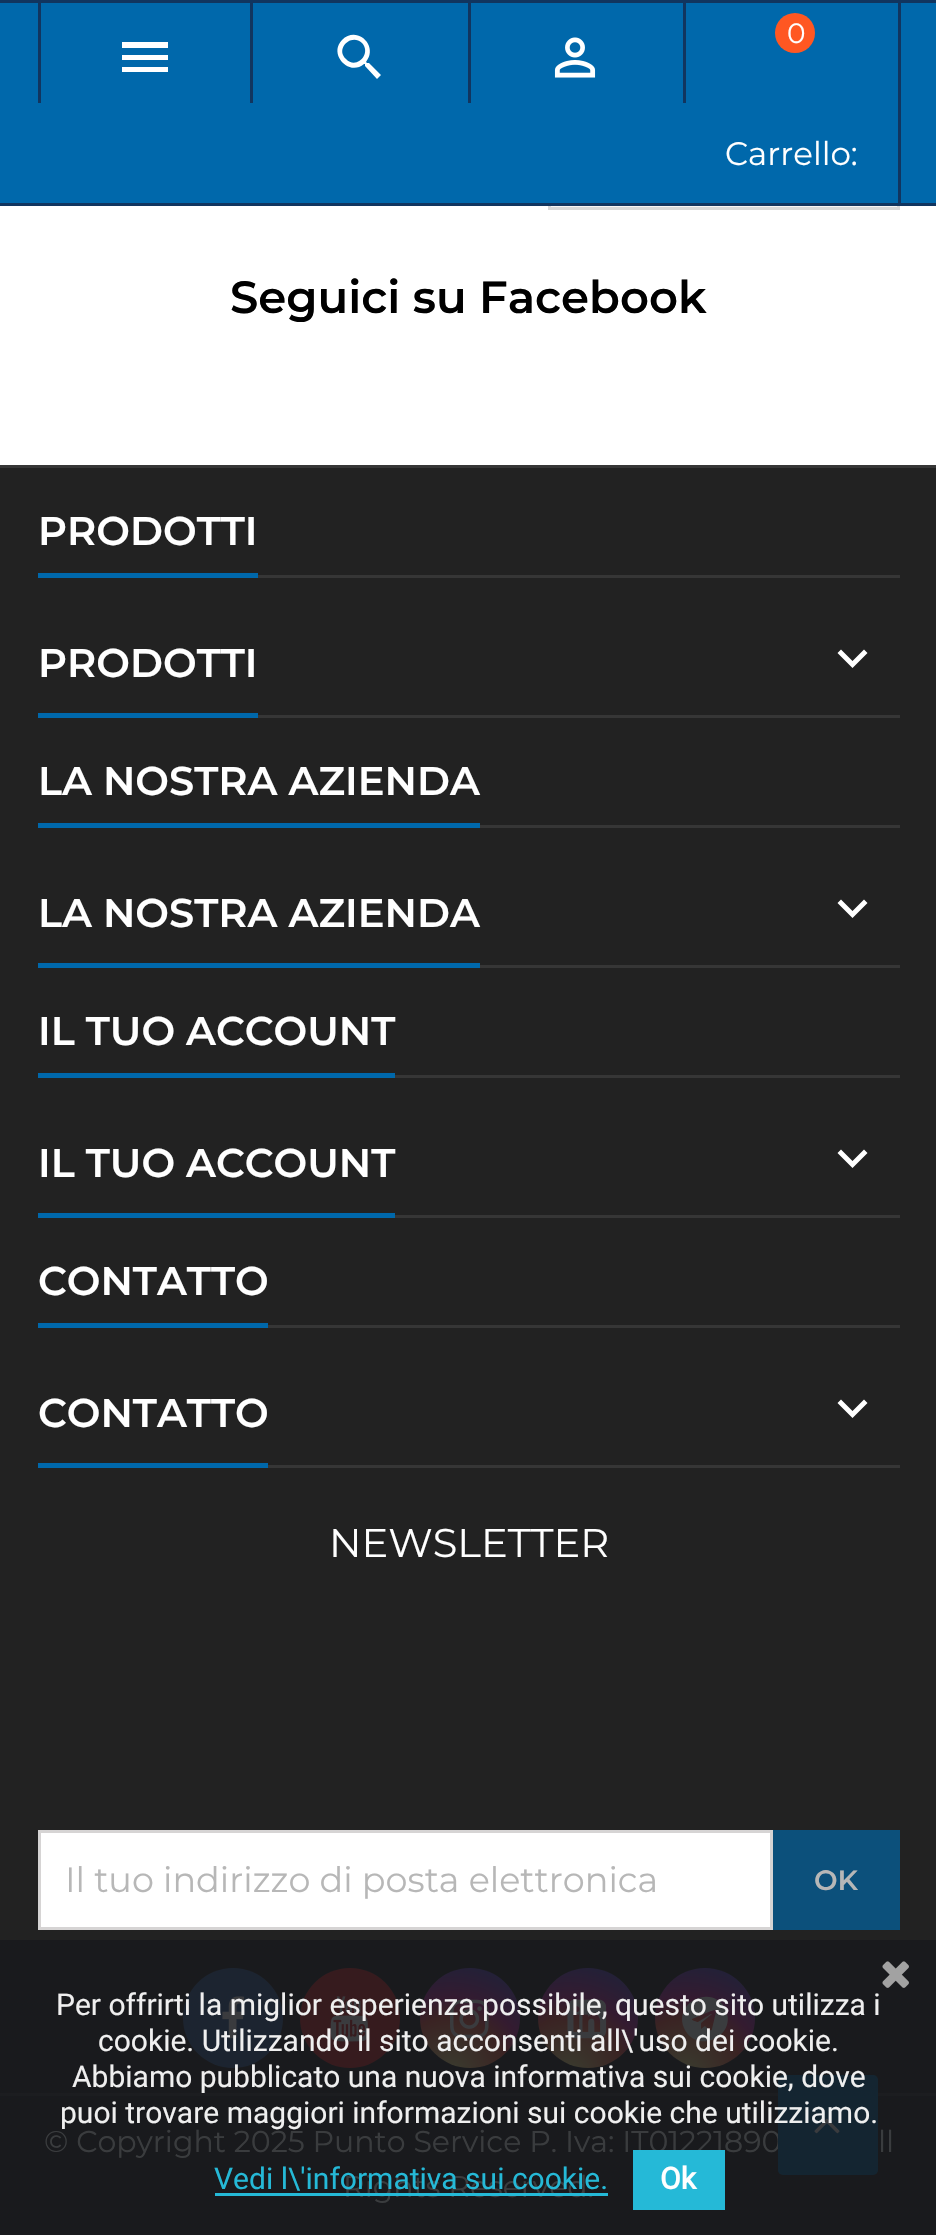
#include "include/core/SkBlurTypes.h"
#include "include/core/SkCanvas.h"
#include "include/core/SkData.h"
#include "include/core/SkFont.h"
#include "include/core/SkFontMgr.h"
#include "include/core/SkImage.h"
#include "include/core/SkMaskFilter.h"
#include "include/core/SkPaint.h"
#include "include/core/SkPathBuilder.h"
#include "include/core/SkTextBlob.h"
#include "include/effects/SkDashPathEffect.h"
#include "include/effects/SkGradientShader.h"
#include "include/utils/SkParsePath.h"

extern sk_sp<SkFontMgr> fontMgr;

void draw(SkCanvas* canvas) {
  SkPaint p;
  p.setAntiAlias(true);
  canvas->clear(SK_ColorWHITE);
  p.setColor(SkColorSetRGB(246, 246, 246));
  canvas->drawRect(SkRect::MakeLTRB(551, 206, 897, 207), p);
  p.setStyle(SkPaint::kStroke_Style);
  p.setStrokeWidth(3);
  p.setColor(SkColorSetRGB(216, 216, 216));
  canvas->drawRect(SkRect::MakeLTRB(549.5f, 126.5f, 898.5f, 208.5f), p);
  p.setStyle(SkPaint::kFill_Style);
  p.setColor(SkColorSetRGB(0, 104, 171));
  canvas->drawRect(SkRect::MakeLTRB(0, 3, 936, 203), p);
  p.setColor(SkColorSetRGB(17, 53, 95));
  canvas->drawRect(SkRect::MakeLTRB(0, 0, 936, 3), p);
  canvas->drawRect(SkRect::MakeLTRB(0, 203, 936, 206), p);
  canvas->drawRect(SkRect::MakeLTRB(250, 3, 253, 103), p);
  canvas->drawRect(SkRect::MakeLTRB(38, 3, 41, 103), p);
  p.setColor(SK_ColorWHITE);
  canvas->drawPath(SkPathBuilder().moveTo(122, 42).lineTo(168, 42).lineTo(168, 48).lineTo(122, 48).close().moveTo(122, 60).lineTo(122, 55).lineTo(168, 55).lineTo(168, 60).close().moveTo(122, 72).lineTo(122, 67).lineTo(168, 67).lineTo(168, 72).close().detach(), p);
  p.setColor(SkColorSetRGB(17, 53, 95));
  canvas->drawRect(SkRect::MakeLTRB(468, 3, 471, 103), p);
  p.setColor(SK_ColorWHITE);
  canvas->drawPath(SkPathBuilder().moveTo(346, 59).cubicTo(356, 70, 372, 54, 362, 43).cubicTo(351, 33, 335, 49, 346, 59).close().moveTo(369, 63).lineTo(381, 75).lineTo(377, 79).lineTo(365, 66).lineTo(365, 64).lineTo(364, 64).cubicTo(349, 77, 328, 54, 342, 40).cubicTo(357, 25, 379, 46, 366, 62).lineTo(367, 63).close().detach(), p);
  p.setColor(SkColorSetRGB(17, 53, 95));
  canvas->drawRect(SkRect::MakeLTRB(683, 3, 686, 103), p);
  canvas->drawImageRect(SkImages::DeferredFromEncodedData(SkData::MakeFromFileName("images/1.png")), SkRect::MakeLTRB(554, 37, 596, 78), SkSamplingOptions());
  canvas->drawRect(SkRect::MakeLTRB(898, 3, 901, 203), p);
  p.setColor(SkColorSetRGB(255, 87, 34));
  canvas->drawCircle(795, 33, 20, p);
  p.setColor(SkColorSetRGB(34, 34, 34));
  canvas->drawRect(SkRect::MakeLTRB(0, 468, 936, 1940), p);
  p.setColor(SkColorSetRGB(25, 26, 29));
  canvas->drawRect(SkRect::MakeLTRB(0, 1940, 936, 2093), p);
  p.setColor(SkColorSetRGB(54, 54, 54));
  canvas->drawRect(SkRect::MakeLTRB(0, 465, 936, 468), p);
  canvas->drawRect(SkRect::MakeLTRB(258, 575, 900, 578), p);
  p.setColor(SkColorSetRGB(0, 104, 171));
  canvas->drawRect(SkRect::MakeLTRB(38, 573, 258, 578), p);
  p.setColor(SkColorSetRGB(54, 54, 54));
  canvas->drawRect(SkRect::MakeLTRB(258, 715, 900, 718), p);
  p.setColor(SkColorSetRGB(0, 104, 171));
  canvas->drawRect(SkRect::MakeLTRB(38, 713, 258, 718), p);
  p.setColor(SK_ColorWHITE);
  canvas->drawPath(SkPathBuilder().moveTo(841, 649.5f).lineTo(852.5f, 661).lineTo(864, 649.5f).lineTo(867.5f, 653).lineTo(852.5f, 668).lineTo(837.5f, 653).close().detach(), p);
  p.setColor(SkColorSetRGB(54, 54, 54));
  canvas->drawRect(SkRect::MakeLTRB(480, 825, 900, 828), p);
  p.setColor(SkColorSetRGB(0, 104, 171));
  canvas->drawRect(SkRect::MakeLTRB(38, 823, 480, 828), p);
  p.setColor(SkColorSetRGB(54, 54, 54));
  canvas->drawRect(SkRect::MakeLTRB(480, 965, 900, 968), p);
  p.setColor(SkColorSetRGB(0, 104, 171));
  canvas->drawRect(SkRect::MakeLTRB(38, 963, 480, 968), p);
  p.setColor(SK_ColorWHITE);
  canvas->drawPath(SkPathBuilder().moveTo(841, 899.5f).lineTo(852.5f, 911).lineTo(864, 899.5f).lineTo(867.5f, 903).lineTo(852.5f, 918).lineTo(837.5f, 903).close().detach(), p);
  p.setColor(SkColorSetRGB(54, 54, 54));
  canvas->drawRect(SkRect::MakeLTRB(395, 1075, 900, 1078), p);
  p.setColor(SkColorSetRGB(0, 104, 171));
  canvas->drawRect(SkRect::MakeLTRB(38, 1073, 395, 1078), p);
  p.setColor(SkColorSetRGB(54, 54, 54));
  canvas->drawRect(SkRect::MakeLTRB(395, 1215, 900, 1218), p);
  p.setColor(SkColorSetRGB(0, 104, 171));
  canvas->drawRect(SkRect::MakeLTRB(38, 1213, 395, 1218), p);
  p.setColor(SK_ColorWHITE);
  canvas->drawPath(SkPathBuilder().moveTo(841, 1149.5f).lineTo(852.5f, 1161).lineTo(864, 1149.5f).lineTo(867.5f, 1153).lineTo(852.5f, 1168).lineTo(837.5f, 1153).close().detach(), p);
  p.setColor(SkColorSetRGB(54, 54, 54));
  canvas->drawRect(SkRect::MakeLTRB(268, 1325, 900, 1328), p);
  p.setColor(SkColorSetRGB(0, 104, 171));
  canvas->drawRect(SkRect::MakeLTRB(38, 1323, 268, 1328), p);
  p.setColor(SkColorSetRGB(54, 54, 54));
  canvas->drawRect(SkRect::MakeLTRB(268, 1465, 900, 1468), p);
  p.setColor(SkColorSetRGB(0, 104, 171));
  canvas->drawRect(SkRect::MakeLTRB(38, 1463, 268, 1468), p);
  p.setColor(SK_ColorWHITE);
  canvas->drawPath(SkPathBuilder().moveTo(841, 1399.5f).lineTo(852.5f, 1411).lineTo(864, 1399.5f).lineTo(867.5f, 1403).lineTo(852.5f, 1418).lineTo(837.5f, 1403).close().detach(), p);
  canvas->drawRect(SkRect::MakeLTRB(39.5f, 1831.5f, 771.5f, 1928.5f), p);
  p.setStyle(SkPaint::kStroke_Style);
  p.setColor(SkColorSetRGB(214, 212, 212));
  canvas->drawRect(SkRect::MakeLTRB(39.5f, 1831.5f, 771.5f, 1928.5f), p);
  p.setStyle(SkPaint::kFill_Style);
  p.setColor(SkColorSetRGB(12, 80, 123));
  canvas->drawRect(SkRect::MakeLTRB(773, 1830, 900, 1930), p);
  p.setColor(SkColorSetRGB(28, 36, 48));
  canvas->drawCircle(233, 2018, 50, p);
  canvas->drawImageRect(SkImages::DeferredFromEncodedData(SkData::MakeFromFileName("images/3.png")), SkRect::MakeLTRB(222, 1996, 245, 2039), SkSamplingOptions());
  p.setColor(SkColorSetRGB(54, 27, 30));
  canvas->drawCircle(350, 2018, 50, p);
  canvas->drawImageRect(SkImages::DeferredFromEncodedData(SkData::MakeFromFileName("images/4.png")), SkRect::MakeLTRB(330, 1996, 368, 2042), SkSamplingOptions());
  {
    const SkColor colors[] = {SkColorSetRGB(58, 58, 46), SkColorSetRGB(58, 58, 46), SkColorSetRGB(58, 35, 35), SkColorSetRGB(52, 27, 48), SkColorSetRGB(26, 35, 59)};
    const float stops[] = {0, 0.05f, 0.45f, 0.6f, 1};
    p.setShader(SkGradientShader::MakeRadial({450, 2075}, 128, colors, stops, 5, SkTileMode::kClamp));
    p.setAlpha(255);
  }
  canvas->drawCircle(470, 2018, 50, p);
  canvas->drawImageRect(SkImages::DeferredFromEncodedData(SkData::MakeFromFileName("images/5.png")), SkRect::MakeLTRB(450, 1999, 489, 2039), SkSamplingOptions());
  {
    const SkColor colors[] = {SkColorSetRGB(58, 58, 46), SkColorSetRGB(58, 58, 46), SkColorSetRGB(58, 35, 35), SkColorSetRGB(52, 27, 48), SkColorSetRGB(26, 35, 59)};
    const float stops[] = {0, 0.05f, 0.45f, 0.6f, 1};
    p.setShader(SkGradientShader::MakeRadial({568, 2075}, 128, colors, stops, 5, SkTileMode::kClamp));
    p.setAlpha(255);
  }
  canvas->drawCircle(588, 2018, 50, p);
  canvas->drawImageRect(SkImages::DeferredFromEncodedData(SkData::MakeFromFileName("images/6.png")), SkRect::MakeLTRB(567, 1999, 607, 2039), SkSamplingOptions());
  {
    const SkColor colors[] = {SkColorSetRGB(58, 58, 46), SkColorSetRGB(58, 58, 46), SkColorSetRGB(58, 35, 35), SkColorSetRGB(52, 27, 48), SkColorSetRGB(26, 35, 59)};
    const float stops[] = {0, 0.05f, 0.45f, 0.6f, 1};
    p.setShader(SkGradientShader::MakeRadial({685, 2075}, 128, colors, stops, 5, SkTileMode::kClamp));
    p.setAlpha(255);
  }
  canvas->drawCircle(705, 2018, 50, p);
  p.setShader(nullptr);
  p.setColor(SkColorSetRGB(58, 60, 62));
  canvas->drawPath(SkPathBuilder().moveTo(712, 2029).lineTo(716, 2012).cubicTo(717, 2008, 712, 2011, 711, 2011).lineTo(692, 2019).cubicTo(691, 2020, 697, 2022, 698, 2022).lineTo(711, 2014).cubicTo(711, 2014, 712, 2014, 712, 2014).lineTo(701, 2023).lineTo(701, 2029).lineTo(705, 2026).cubicTo(706, 2027, 712, 2033, 712, 2029).close().moveTo(726, 2010).cubicTo(737, 2037, 696, 2055, 684, 2028).cubicTo(673, 2001, 714, 1983, 726, 2010).close().detach(), p);
  p.setColor(SkColorSetRGB(25, 26, 29));
  canvas->drawRect(SkRect::MakeLTRB(0, 2096, 936, 2235), p);
  p.setColor(SkColorSetRGB(28, 29, 32));
  canvas->drawRect(SkRect::MakeLTRB(0, 2093, 936, 2096), p);
  canvas->drawImageRect(SkImages::DeferredFromEncodedData(SkData::MakeFromFileName("images/7.png")), SkRect::MakeLTRB(882, 1961, 909, 1988), SkSamplingOptions());
  SkFont font1(fontMgr->matchFamilyStyle("Montserrat", SkFontStyle::Normal()), 28);
  font1.setSubpixel(true);
  p.setColor(SK_ColorWHITE);
  canvas->drawString("0", 787, 43, font1, p);
  SkFont font2(fontMgr->matchFamilyStyle("Montserrat", SkFontStyle::Normal()), 32.5f);
  font2.setSubpixel(true);
  canvas->drawString("Carrello:", 725, 165, font2, p);
  SkFont font3(fontMgr->matchFamilyStyle("Montserrat", SkFontStyle(600, SkFontStyle::kNormal_Width, SkFontStyle::kUpright_Slant)), 45);
  font3.setSubpixel(true);
  p.setColor(SK_ColorBLACK);
  canvas->drawString("Seguici su Facebook", 230, 313, font3, p);
  SkFont font4(fontMgr->matchFamilyStyle("Montserrat", SkFontStyle(600, SkFontStyle::kNormal_Width, SkFontStyle::kUpright_Slant)), 40);
  font4.setSubpixel(true);
  p.setColor(SK_ColorWHITE);
  canvas->drawString("PRODOTTI", 38, 545, font4, p);
  canvas->drawString("PRODOTTI", 38, 677, font4, p);
  canvas->drawString("LA NOSTRA AZIENDA", 38, 795, font4, p);
  canvas->drawString("LA NOSTRA AZIENDA", 38, 927, font4, p);
  canvas->drawString("IL TUO ACCOUNT", 38, 1045, font4, p);
  canvas->drawString("IL TUO ACCOUNT", 38, 1177, font4, p);
  canvas->drawString("CONTATTO", 38, 1295, font4, p);
  canvas->drawString("CONTATTO", 38, 1427, font4, p);
  SkFont font5(fontMgr->matchFamilyStyle("Montserrat", SkFontStyle::Normal()), 40);
  font5.setSubpixel(true);
  canvas->drawString("NEWSLETTER", 329, 1557, font5, p);
  SkFont font6(fontMgr->matchFamilyStyle("Montserrat", SkFontStyle::Normal()), 35);
  font6.setSubpixel(true);
  p.setColor(SkColorSetRGB(183, 183, 183));
  canvas->drawString("Il tuo indirizzo di posta elettronica", 65, 1892, font6, p);
  SkFont font7(fontMgr->matchFamilyStyle("Montserrat", SkFontStyle(600, SkFontStyle::kNormal_Width, SkFontStyle::kUpright_Slant)), 28);
  font7.setSubpixel(true);
  canvas->drawString("OK", 814, 1890, font7, p);
  SkFont font8(fontMgr->matchFamilyStyle("Montserrat", SkFontStyle::Normal()), 30);
  font8.setSubpixel(true);
  p.setColor(SkColorSetRGB(58, 60, 62));
  canvas->drawString("© Copyright 2025 Punto Service P. Iva: IT01221890", 44, 2152, font8, p);
  p.setColor(SkColorSetRGB(20, 37, 49));
  canvas->drawRoundRect(SkRect::MakeLTRB(778, 2075, 878, 2175), 5, 5, p);
  canvas->drawImageRect(SkImages::DeferredFromEncodedData(SkData::MakeFromFileName("images/2.png")), SkRect::MakeLTRB(814, 2118, 840, 2134), SkSamplingOptions());
  p.setColor(SkColorSetRGB(58, 60, 62));
  canvas->drawString("ll", 878, 2152, font8, p);
  canvas->drawString("Rights Reserved.", 343, 2197, font8, p);
  SkFont font9(fontMgr->matchFamilyStyle("Roboto", SkFontStyle::Normal()), 30);
  font9.setSubpixel(true);
  p.setColor(SkColorSetRGB(239, 239, 239));
  canvas->drawString("Per offrirti la miglior esperienza possibile, questo sito utilizza i", 56, 2015, font9, p);
  canvas->drawString("cookie. Utilizzando il sito acconsenti all\\'uso dei cookie.", 98, 2051, font9, p);
  canvas->drawString("Abbiamo pubblicato una nuova informativa sui cookie, dove", 72, 2087, font9, p);
  canvas->drawString("puoi trovare maggiori informazioni sui cookie che utilizziamo.", 60, 2123, font9, p);
  p.setColor(SkColorSetRGB(37, 185, 215));
  canvas->drawString("Vedi l\\'informativa sui cookie.", 214, 2189, font9, p);
  canvas->drawRect(SkRect::MakeLTRB(215, 2193, 608, 2196), p);
  canvas->drawRect(SkRect::MakeLTRB(633, 2150, 725, 2210), p);
  SkFont font10(fontMgr->matchFamilyStyle("Roboto", SkFontStyle::Bold()), 30);
  font10.setSubpixel(true);
  p.setColor(SK_ColorWHITE);
  canvas->drawString("Ok", 660, 2189, font10, p);
}
